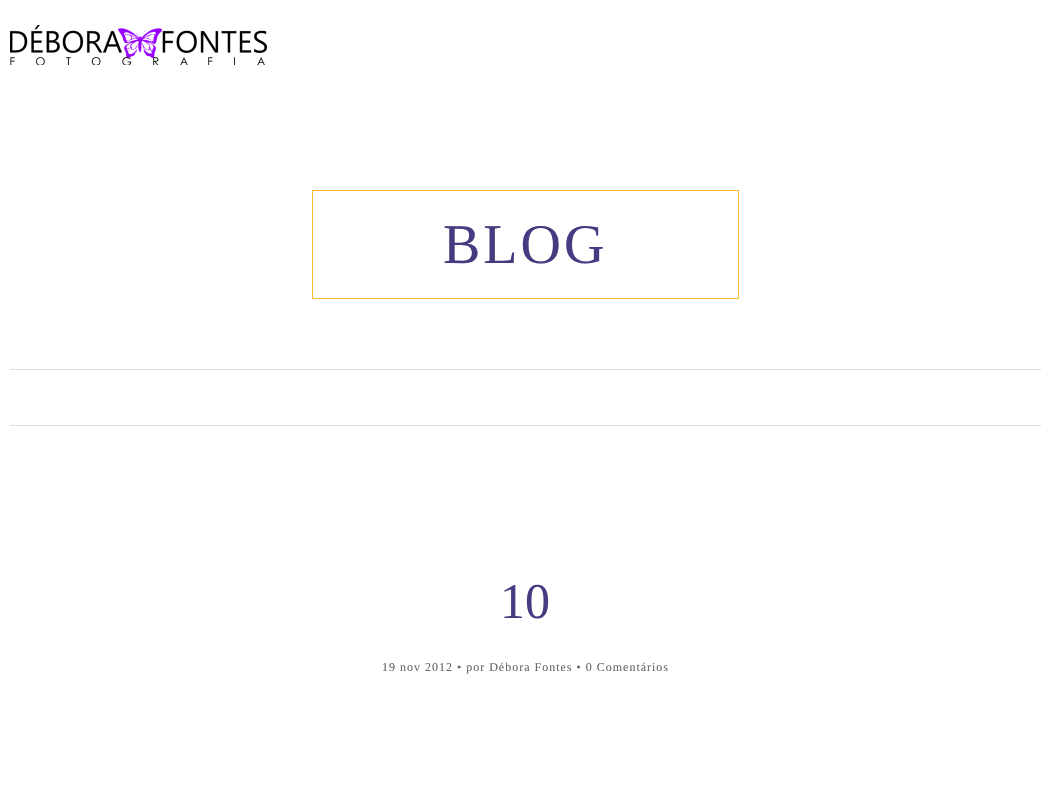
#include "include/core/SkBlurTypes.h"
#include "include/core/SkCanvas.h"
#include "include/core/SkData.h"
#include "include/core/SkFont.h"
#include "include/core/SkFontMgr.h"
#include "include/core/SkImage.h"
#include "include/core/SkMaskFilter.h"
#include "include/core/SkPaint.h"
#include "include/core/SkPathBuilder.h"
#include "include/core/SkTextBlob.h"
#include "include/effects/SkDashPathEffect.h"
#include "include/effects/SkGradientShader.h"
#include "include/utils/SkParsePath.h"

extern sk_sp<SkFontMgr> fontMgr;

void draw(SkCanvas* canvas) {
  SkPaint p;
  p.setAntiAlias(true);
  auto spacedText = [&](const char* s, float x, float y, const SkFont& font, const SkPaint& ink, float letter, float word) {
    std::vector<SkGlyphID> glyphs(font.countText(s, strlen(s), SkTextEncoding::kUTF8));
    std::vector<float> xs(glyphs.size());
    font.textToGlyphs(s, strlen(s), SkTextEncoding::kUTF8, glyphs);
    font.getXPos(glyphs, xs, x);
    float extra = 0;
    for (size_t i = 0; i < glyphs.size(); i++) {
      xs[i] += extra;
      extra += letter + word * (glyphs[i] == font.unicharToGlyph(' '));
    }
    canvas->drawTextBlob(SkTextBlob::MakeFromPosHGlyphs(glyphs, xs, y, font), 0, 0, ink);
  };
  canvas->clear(SK_ColorWHITE);
  canvas->drawImageRect(SkImages::DeferredFromEncodedData(SkData::MakeFromFileName("images/1.png")), SkRect::MakeLTRB(10, 25, 267, 65), SkSamplingOptions());
  p.setStyle(SkPaint::kStroke_Style);
  p.setStrokeWidth(1);
  p.setColor(SkColorSetRGB(253, 185, 46));
  canvas->drawRect(SkRect::MakeLTRB(312.5f, 190.5f, 738.5f, 298.5f), p);
  p.setStyle(SkPaint::kFill_Style);
  p.setColor(SkColorSetRGB(221, 221, 221));
  canvas->drawRect(SkRect::MakeLTRB(10, 369, 1041, 370), p);
  canvas->drawRect(SkRect::MakeLTRB(10, 425, 1041, 426), p);
  SkFont font1(fontMgr->matchFamilyStyle("Liberation Serif", SkFontStyle::Normal()), 56);
  font1.setSubpixel(true);
  p.setColor(SkColorSetRGB(69, 59, 128));
  spacedText("BLOG", 443, 263, font1, p, 3, 0);
  SkFont font2(fontMgr->matchFamilyStyle("Liberation Serif", SkFontStyle::Normal()), 50);
  font2.setSubpixel(true);
  canvas->drawString("10", 500, 618, font2, p);
  SkFont font3(fontMgr->matchFamilyStyle("Liberation Serif", SkFontStyle::Normal()), 12);
  font3.setSubpixel(true);
  p.setColor(SkColorSetRGB(102, 102, 102));
  spacedText("19 nov 2012 • por Débora Fontes • 0 Comentários", 382, 671, font3, p, 1, 0);
}
